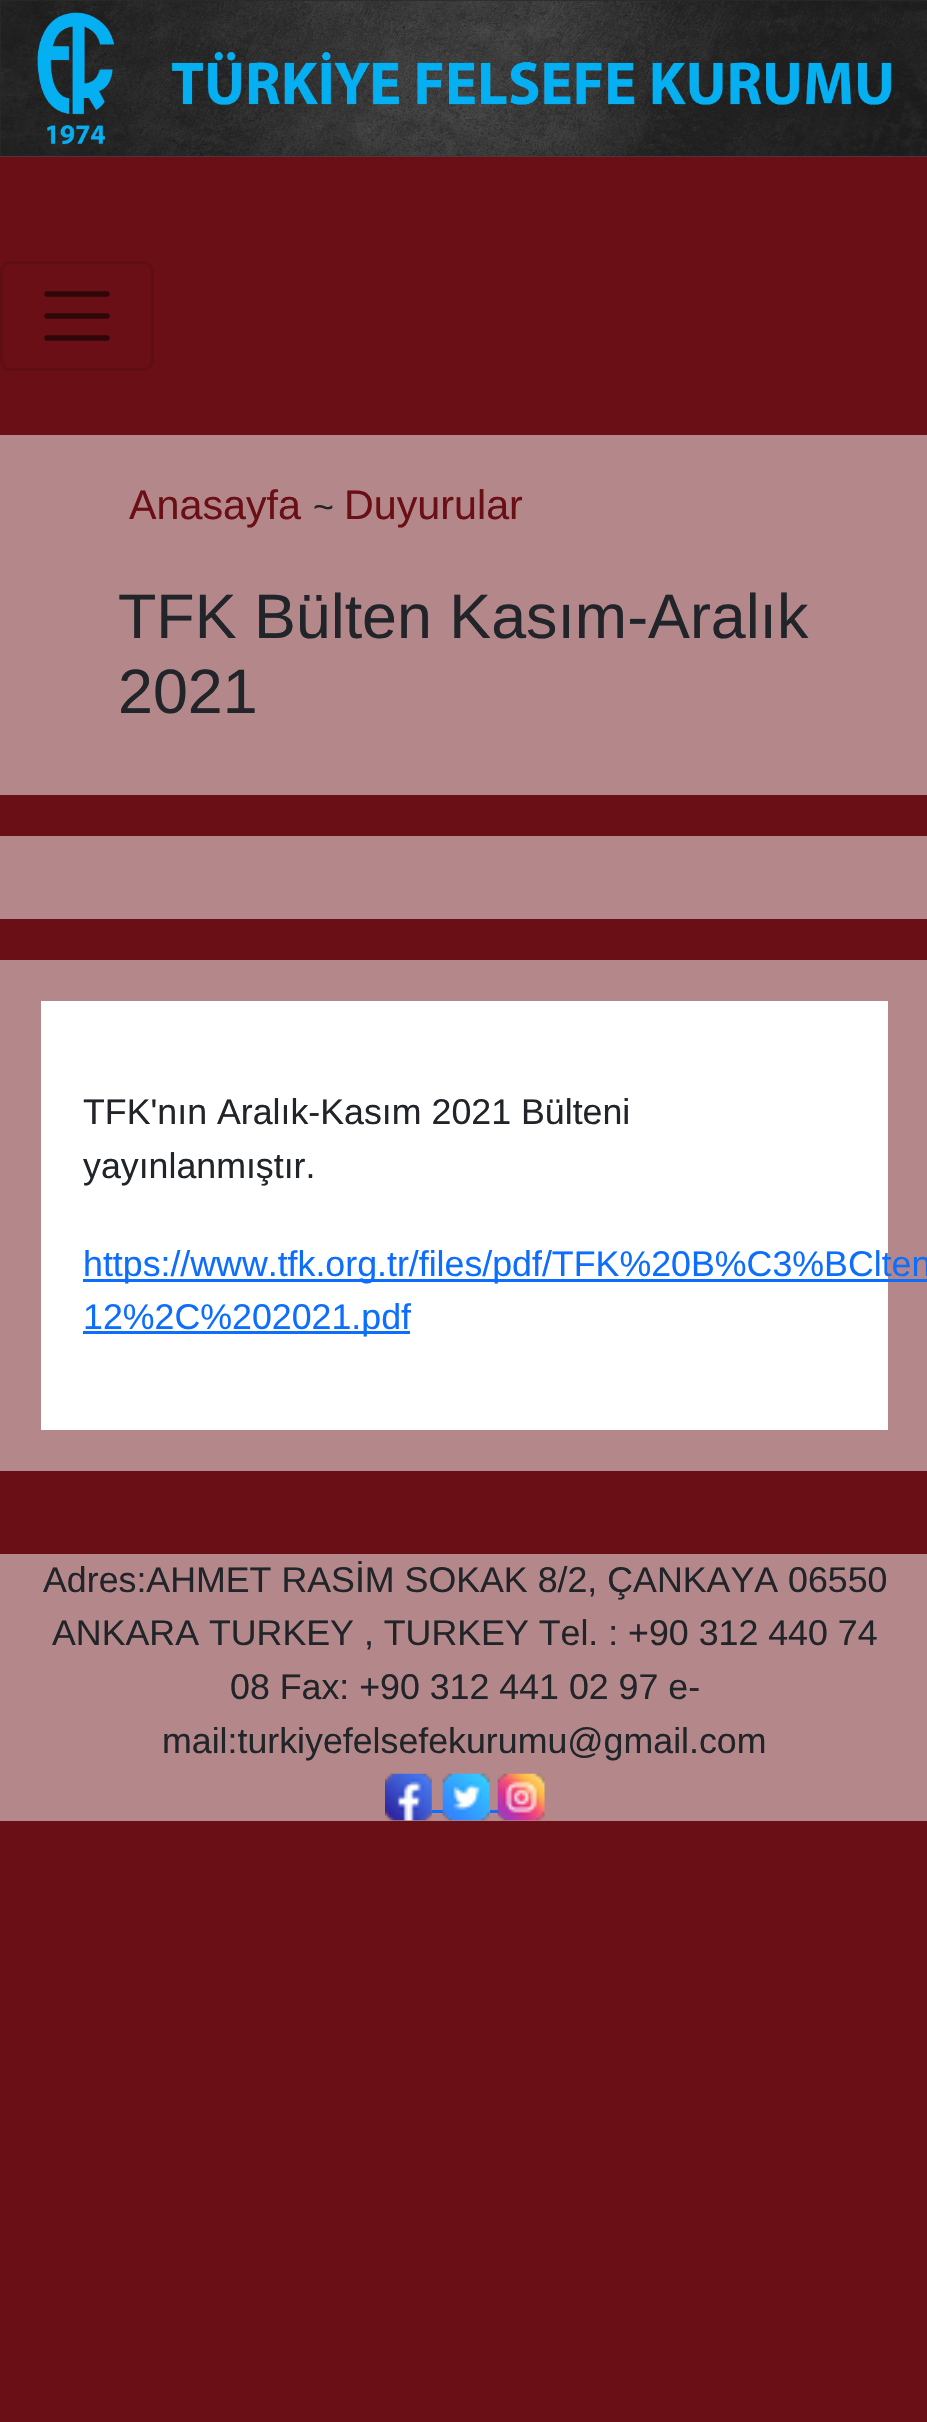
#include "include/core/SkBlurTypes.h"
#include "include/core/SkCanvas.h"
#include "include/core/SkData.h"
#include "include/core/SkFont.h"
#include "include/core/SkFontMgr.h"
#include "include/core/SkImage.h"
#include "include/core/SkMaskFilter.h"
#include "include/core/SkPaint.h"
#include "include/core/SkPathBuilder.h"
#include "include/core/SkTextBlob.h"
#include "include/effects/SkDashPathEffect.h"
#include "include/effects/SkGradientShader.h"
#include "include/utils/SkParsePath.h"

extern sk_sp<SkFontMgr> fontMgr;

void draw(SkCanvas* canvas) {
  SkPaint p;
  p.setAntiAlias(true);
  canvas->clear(SkColorSetRGB(105, 15, 21));
  canvas->drawImageRect(SkImages::DeferredFromEncodedData(SkData::MakeFromFileName("images/1.png")), SkRect::MakeLTRB(0, 0, 927, 157), SkSamplingOptions());
  p.setStyle(SkPaint::kStroke_Style);
  p.setStrokeWidth(3);
  p.setColor(SkColorSetRGB(95, 14, 19));
  canvas->drawRoundRect(SkRect::MakeLTRB(1.5f, 262.5f, 152.5f, 369.5f), 9.5f, 9.5f, p);
  p.setStrokeWidth(5.5f);
  p.setStrokeCap(SkPaint::kRound_Cap);
  p.setColor(SkColorSetRGB(47, 7, 9));
  canvas->drawPath(SkPathBuilder().moveTo(47, 294).lineTo(107, 294).moveTo(47, 316).lineTo(107, 316).moveTo(47, 338).lineTo(107, 338).detach(), p);
  p.setStyle(SkPaint::kFill_Style);
  p.setColor(SkColorSetRGB(180, 135, 138));
  canvas->drawRect(SkRect::MakeLTRB(0, 435, 927, 795), p);
  canvas->drawRect(SkRect::MakeLTRB(0, 836, 927, 919), p);
  canvas->drawRect(SkRect::MakeLTRB(0, 960, 927, 1471), p);
  p.setColor(SK_ColorWHITE);
  canvas->drawRect(SkRect::MakeLTRB(41, 1001, 888, 1430), p);
  p.setColor(SkColorSetRGB(13, 110, 253));
  canvas->drawRect(SkRect::MakeLTRB(83, 1279, 927, 1282), p);
  canvas->drawRect(SkRect::MakeLTRB(83, 1331, 410, 1334), p);
  p.setColor(SkColorSetRGB(180, 135, 138));
  canvas->drawRect(SkRect::MakeLTRB(0, 1554, 927, 1821), p);
  canvas->drawImageRect(SkImages::DeferredFromEncodedData(SkData::MakeFromFileName("images/2.png")), SkRect::MakeLTRB(385, 1773, 432, 1821), SkSamplingOptions());
  p.setColor(SkColorSetRGB(13, 110, 253));
  canvas->drawRect(SkRect::MakeLTRB(432, 1810, 443, 1813), p);
  canvas->drawImageRect(SkImages::DeferredFromEncodedData(SkData::MakeFromFileName("images/3.png")), SkRect::MakeLTRB(442, 1773, 490, 1821), SkSamplingOptions());
  canvas->drawRect(SkRect::MakeLTRB(490, 1810, 498, 1813), p);
  canvas->drawImageRect(SkImages::DeferredFromEncodedData(SkData::MakeFromFileName("images/4.png")), SkRect::MakeLTRB(497, 1773, 545, 1821), SkSamplingOptions());
  SkFont font1(fontMgr->matchFamilyStyle("Liberation Sans", SkFontStyle::Normal()), 41.25f);
  font1.setSubpixel(true);
  p.setColor(SkColorSetRGB(105, 15, 21));
  canvas->drawString("Anasayfa", 129, 519, font1, p);
  SkFont font2(fontMgr->matchFamilyStyle("Liberation Sans", SkFontStyle::Normal()), 35.75f);
  font2.setSubpixel(true);
  p.setColor(SkColorSetRGB(33, 37, 41));
  canvas->drawString("~", 313, 519, font2, p);
  p.setColor(SkColorSetRGB(105, 15, 21));
  canvas->drawString("Duyurular", 344, 519, font1, p);
  SkFont font3(fontMgr->matchFamilyStyle("Liberation Sans", SkFontStyle::Normal()), 62.75f);
  font3.setSubpixel(true);
  p.setColor(SkColorSetRGB(33, 37, 41));
  canvas->drawString("TFK Bülten Kasım-Aralık", 118, 638, font3, p);
  canvas->drawString("2021", 118, 713, font3, p);
  canvas->drawString("TFK'nın Aralık-Kasım 2021 Bülteni", 83, 1124, font2, p);
  canvas->drawString("yayınlanmıştır.", 83, 1178, font2, p);
  p.setColor(SkColorSetRGB(13, 110, 253));
  canvas->drawString("https://www.tfk.org.tr/files/pdf/TFK%20B%C3%BClten", 83, 1276, font2, p);
  canvas->drawString("12%2C%202021.pdf", 83, 1329, font2, p);
  p.setColor(SkColorSetRGB(33, 37, 41));
  canvas->drawString("Adres:AHMET RASİM SOKAK 8/2, ÇANKAYA 06550", 43, 1592, font2, p);
  canvas->drawString("ANKARA TURKEY , TURKEY Tel. : +90 312 440 74", 52, 1645, font2, p);
  canvas->drawString("08 Fax: +90 312 441 02 97 e-", 230, 1699, font2, p);
  canvas->drawString("mail:turkiyefelsefekurumu@gmail.com", 162, 1753, font2, p);
}
